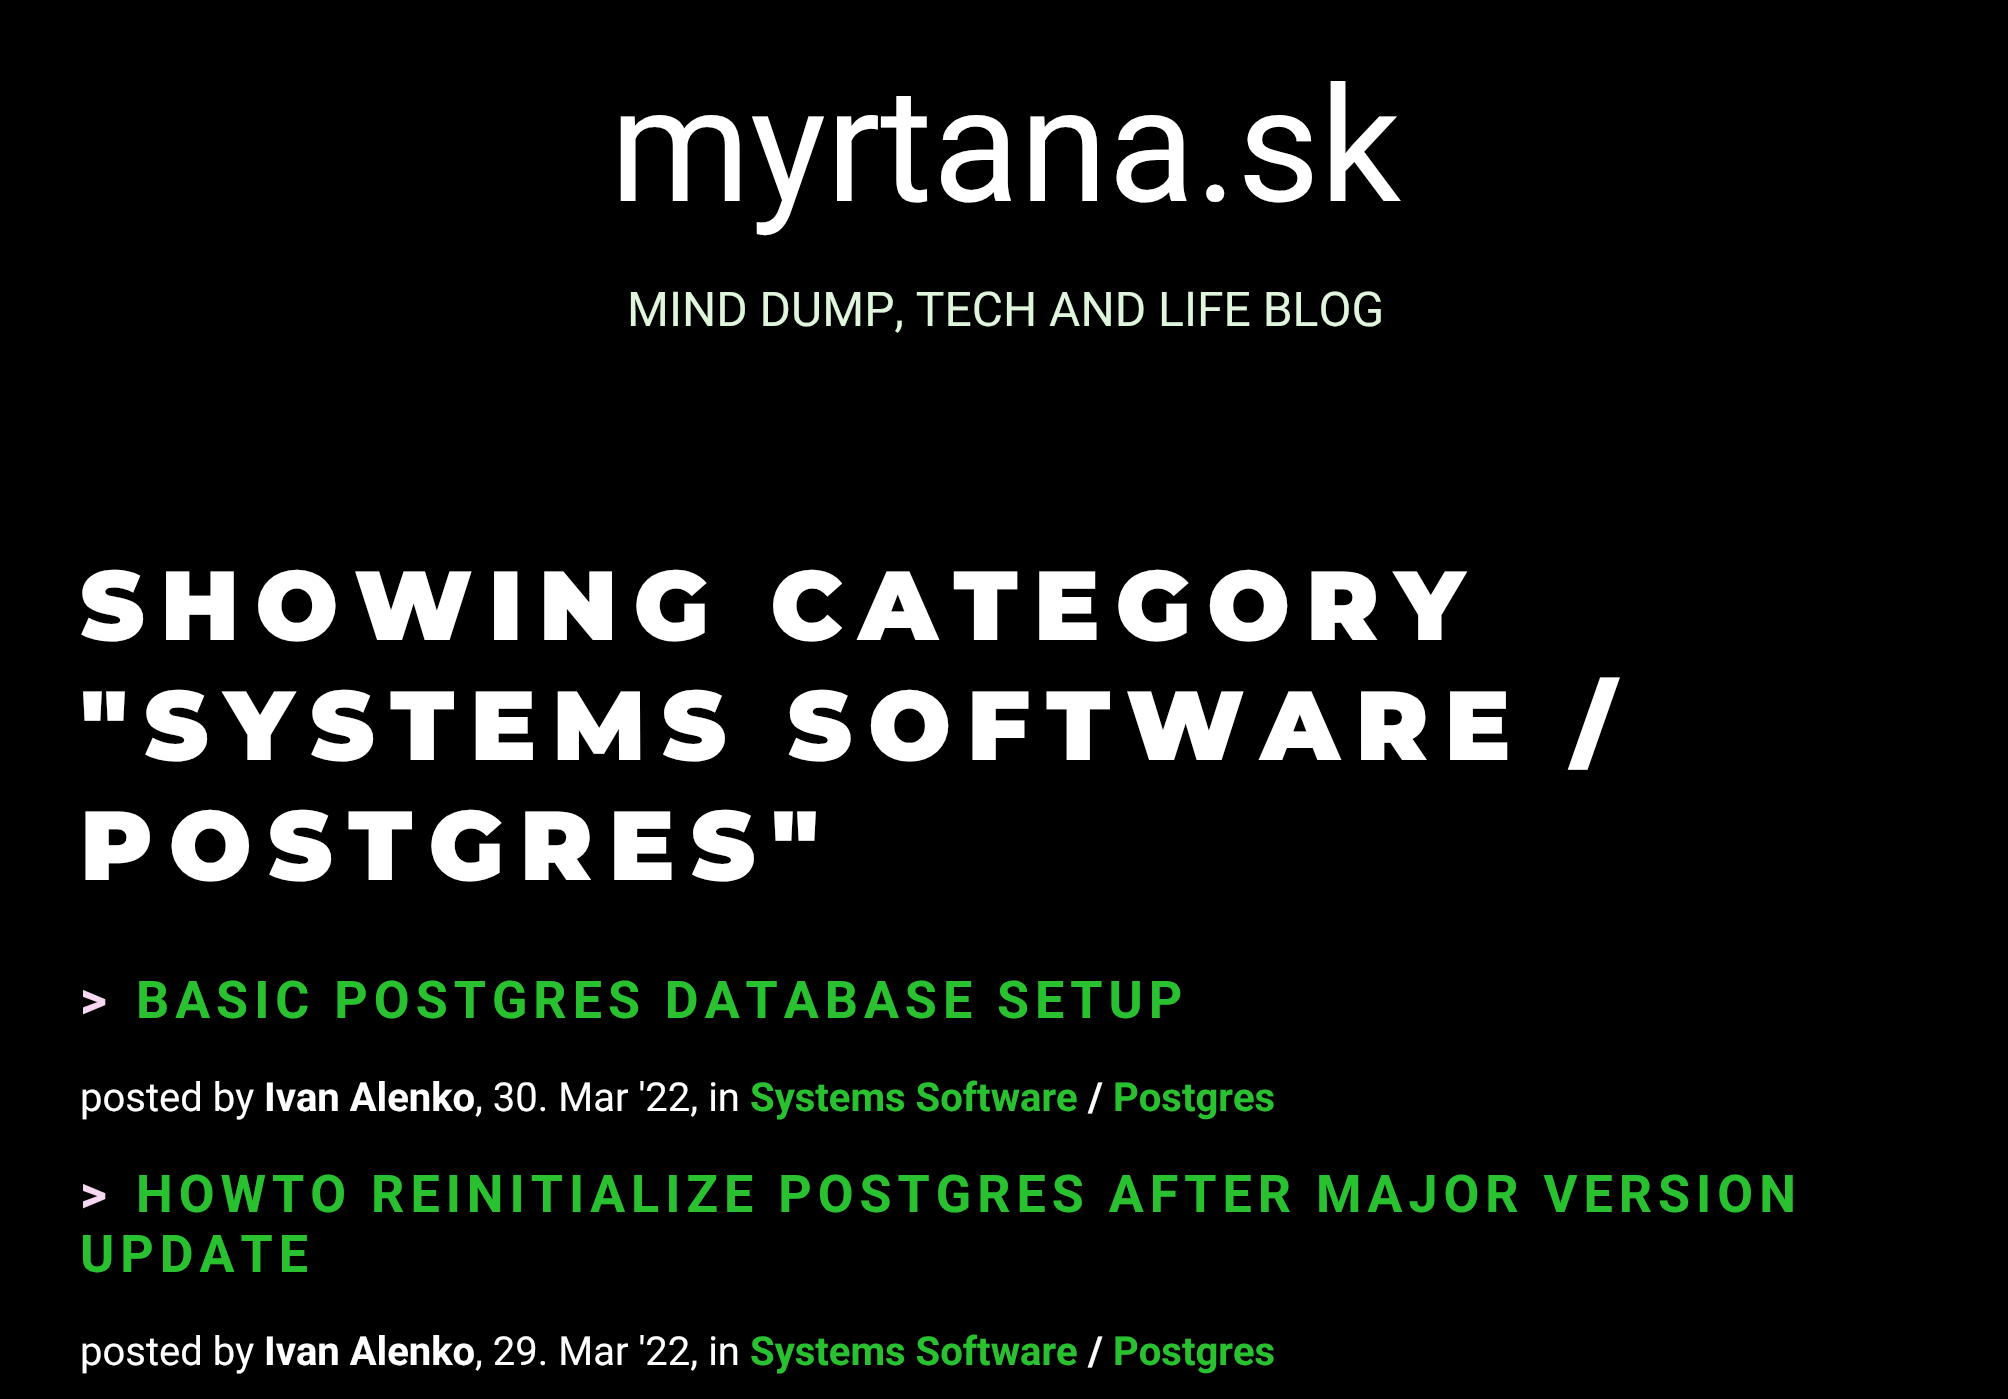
#include "include/core/SkBlurTypes.h"
#include "include/core/SkCanvas.h"
#include "include/core/SkData.h"
#include "include/core/SkFont.h"
#include "include/core/SkFontMgr.h"
#include "include/core/SkImage.h"
#include "include/core/SkMaskFilter.h"
#include "include/core/SkPaint.h"
#include "include/core/SkPathBuilder.h"
#include "include/core/SkTextBlob.h"
#include "include/effects/SkDashPathEffect.h"
#include "include/effects/SkGradientShader.h"
#include "include/utils/SkParsePath.h"

extern sk_sp<SkFontMgr> fontMgr;

void draw(SkCanvas* canvas) {
  SkPaint p;
  p.setAntiAlias(true);
  auto spacedText = [&](const char* s, float x, float y, const SkFont& font, const SkPaint& ink, float letter, float word) {
    std::vector<SkGlyphID> glyphs(font.countText(s, strlen(s), SkTextEncoding::kUTF8));
    std::vector<float> xs(glyphs.size());
    font.textToGlyphs(s, strlen(s), SkTextEncoding::kUTF8, glyphs);
    font.getXPos(glyphs, xs, x);
    float extra = 0;
    for (size_t i = 0; i < glyphs.size(); i++) {
      xs[i] += extra;
      extra += letter + word * (glyphs[i] == font.unicharToGlyph(' '));
    }
    canvas->drawTextBlob(SkTextBlob::MakeFromPosHGlyphs(glyphs, xs, y, font), 0, 0, ink);
  };
  canvas->clear(SK_ColorBLACK);
  SkFont font1(fontMgr->matchFamilyStyle("Roboto", SkFontStyle::Normal()), 160);
  font1.setSubpixel(true);
  p.setColor(SK_ColorWHITE);
  canvas->drawString("myrtana.sk", 610, 201, font1, p);
  SkFont font2(fontMgr->matchFamilyStyle("Roboto", SkFontStyle::Normal()), 48);
  font2.setSubpixel(true);
  p.setColor(SkColorSetRGB(223, 246, 221));
  canvas->drawString("MIND DUMP, TECH AND LIFE BLOG", 627, 326, font2, p);
  SkFont font3(fontMgr->matchFamilyStyle("Montserrat", SkFontStyle(900, SkFontStyle::kNormal_Width, SkFontStyle::kUpright_Slant)), 98);
  font3.setSubpixel(true);
  p.setColor(SK_ColorWHITE);
  spacedText("SHOWING CATEGORY", 80, 640, font3, p, 16, 0);
  spacedText("\"SYSTEMS SOFTWARE /", 80, 760, font3, p, 16, 0);
  spacedText("POSTGRES\"", 80, 880, font3, p, 16, 0);
  SkFont font4(fontMgr->matchFamilyStyle("Roboto", SkFontStyle::Bold()), 52);
  font4.setSubpixel(true);
  p.setColor(SkColorSetRGB(246, 216, 242));
  canvas->drawString(">", 80, 1018, font4, p);
  p.setColor(SkColorSetRGB(42, 193, 49));
  spacedText("BASIC POSTGRES DATABASE SETUP", 136, 1018, font4, p, 6, 0);
  SkFont font5(fontMgr->matchFamilyStyle("Roboto", SkFontStyle::Normal()), 40);
  font5.setSubpixel(true);
  p.setColor(SK_ColorWHITE);
  canvas->drawString("posted by", 80, 1111, font5, p);
  SkFont font6(fontMgr->matchFamilyStyle("Roboto", SkFontStyle::Bold()), 40);
  font6.setSubpixel(true);
  canvas->drawString("Ivan Alenko", 264, 1111, font6, p);
  canvas->drawString(", 30. Mar '22, in", 475, 1111, font5, p);
  p.setColor(SkColorSetRGB(42, 193, 49));
  canvas->drawString("Systems Software", 750, 1111, font6, p);
  p.setColor(SK_ColorWHITE);
  canvas->drawString("/", 1088, 1111, font6, p);
  p.setColor(SkColorSetRGB(42, 193, 49));
  canvas->drawString("Postgres", 1113, 1111, font6, p);
  p.setColor(SkColorSetRGB(246, 216, 242));
  canvas->drawString(">", 80, 1212, font4, p);
  p.setColor(SkColorSetRGB(42, 193, 49));
  spacedText("HOWTO REINITIALIZE POSTGRES AFTER MAJOR VERSION", 136, 1212, font4, p, 6, 0);
  spacedText("UPDATE", 80, 1272, font4, p, 6, 0);
  p.setColor(SK_ColorWHITE);
  canvas->drawString("posted by", 80, 1365, font5, p);
  canvas->drawString("Ivan Alenko", 264, 1365, font6, p);
  canvas->drawString(", 29. Mar '22, in", 475, 1365, font5, p);
  p.setColor(SkColorSetRGB(42, 193, 49));
  canvas->drawString("Systems Software", 750, 1365, font6, p);
  p.setColor(SK_ColorWHITE);
  canvas->drawString("/", 1088, 1365, font6, p);
  p.setColor(SkColorSetRGB(42, 193, 49));
  canvas->drawString("Postgres", 1113, 1365, font6, p);
}
